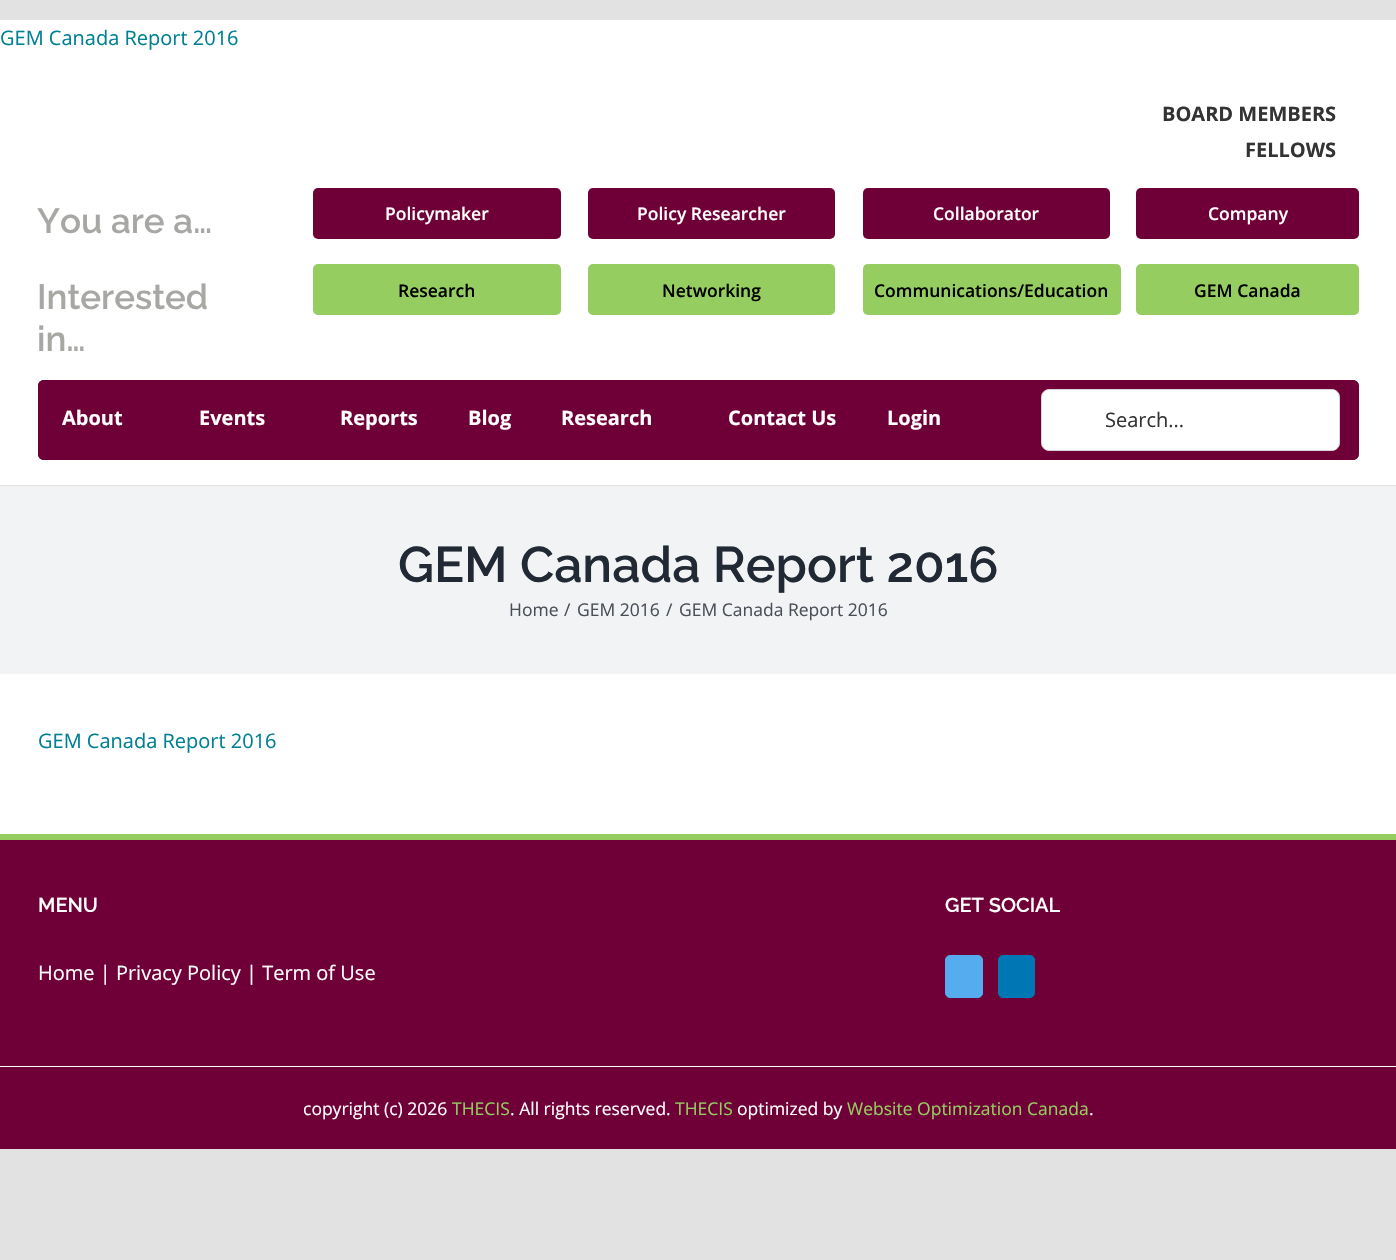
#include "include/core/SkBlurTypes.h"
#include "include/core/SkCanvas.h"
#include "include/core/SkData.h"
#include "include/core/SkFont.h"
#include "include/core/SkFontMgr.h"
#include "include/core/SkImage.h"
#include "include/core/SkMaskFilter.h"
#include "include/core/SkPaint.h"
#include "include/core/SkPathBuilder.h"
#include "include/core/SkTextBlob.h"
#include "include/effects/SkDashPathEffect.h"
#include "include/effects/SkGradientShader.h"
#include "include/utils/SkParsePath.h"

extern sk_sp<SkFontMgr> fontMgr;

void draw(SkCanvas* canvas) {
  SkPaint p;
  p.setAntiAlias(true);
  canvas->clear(SkColorSetRGB(226, 226, 226));
  p.setColor(SK_ColorWHITE);
  canvas->drawRect(SkRect::MakeLTRB(0, 20, 1396, 834), p);
  p.setColor(SkColorSetRGB(224, 224, 224));
  canvas->drawRect(SkRect::MakeLTRB(0, 485, 1396, 486), p);
  p.setColor(SkColorSetRGB(111, 0, 55));
  canvas->drawRoundRect(SkRect::MakeLTRB(313, 188, 561, 239), 5, 5, p);
  canvas->drawRoundRect(SkRect::MakeLTRB(588, 188, 835, 239), 5, 5, p);
  canvas->drawRoundRect(SkRect::MakeLTRB(863, 188, 1110, 239), 5, 5, p);
  canvas->drawRoundRect(SkRect::MakeLTRB(1136, 188, 1359, 239), 5, 5, p);
  p.setColor(SkColorSetRGB(149, 205, 96));
  canvas->drawRoundRect(SkRect::MakeLTRB(313, 264, 561, 315), 5, 5, p);
  canvas->drawRoundRect(SkRect::MakeLTRB(588, 264, 835, 315), 5, 5, p);
  canvas->drawRoundRect(SkRect::MakeLTRB(863, 264, 1121, 315), 5, 5, p);
  canvas->drawRoundRect(SkRect::MakeLTRB(1136, 264, 1359, 315), 5, 5, p);
  p.setColor(SkColorSetRGB(111, 0, 55));
  canvas->drawPath(SkPathBuilder().moveTo(44, 380).lineTo(1041, 380).lineTo(1041, 460).lineTo(44, 460).cubicTo(40.5f, 460, 38, 457.5f, 38, 454).lineTo(38, 386).cubicTo(38, 382.5f, 40.5f, 380, 44, 380).close().detach(), p);
  canvas->drawRoundRect(SkRect::MakeLTRB(38, 380, 1041, 460), 6, 6, p);
  canvas->drawPath(SkPathBuilder().moveTo(1041, 380).lineTo(1353, 380).cubicTo(1356.5f, 380, 1359, 382.5f, 1359, 386).lineTo(1359, 454).cubicTo(1359, 457.5f, 1356.5f, 460, 1353, 460).lineTo(1041, 460).close().detach(), p);
  p.setColor(SK_ColorWHITE);
  canvas->drawRoundRect(SkRect::MakeLTRB(1041.5f, 389.5f, 1339.5f, 450.5f), 7.5f, 7.5f, p);
  p.setStyle(SkPaint::kStroke_Style);
  p.setStrokeWidth(1);
  p.setColor(SkColorSetRGB(216, 216, 216));
  canvas->drawRoundRect(SkRect::MakeLTRB(1041.5f, 389.5f, 1339.5f, 450.5f), 7.5f, 7.5f, p);
  p.setStyle(SkPaint::kFill_Style);
  p.setColor(SkColorSetRGB(242, 243, 245));
  canvas->drawRect(SkRect::MakeLTRB(0, 486, 1396, 674), p);
  p.setColor(SkColorSetRGB(111, 0, 55));
  canvas->drawRect(SkRect::MakeLTRB(0, 840, 1396, 1066), p);
  p.setColor(SkColorSetRGB(149, 205, 96));
  canvas->drawRect(SkRect::MakeLTRB(0, 834, 1396, 840), p);
  p.setColor(SkColorSetRGB(85, 172, 238));
  canvas->drawRoundRect(SkRect::MakeLTRB(945.5f, 955.5f, 982.5f, 997.5f), 4.5f, 4.5f, p);
  p.setStyle(SkPaint::kStroke_Style);
  canvas->drawRoundRect(SkRect::MakeLTRB(945.5f, 955.5f, 982.5f, 997.5f), 4.5f, 4.5f, p);
  p.setStyle(SkPaint::kFill_Style);
  p.setColor(SkColorSetRGB(0, 119, 181));
  canvas->drawRoundRect(SkRect::MakeLTRB(998.5f, 955.5f, 1034.5f, 997.5f), 4.5f, 4.5f, p);
  p.setStyle(SkPaint::kStroke_Style);
  canvas->drawRoundRect(SkRect::MakeLTRB(998.5f, 955.5f, 1034.5f, 997.5f), 4.5f, 4.5f, p);
  p.setStyle(SkPaint::kFill_Style);
  p.setColor(SkColorSetRGB(111, 0, 55));
  canvas->drawRect(SkRect::MakeLTRB(0, 1067, 1396, 1149), p);
  p.setColor(SK_ColorWHITE);
  canvas->drawRect(SkRect::MakeLTRB(0, 1066, 1396, 1067), p);
  SkFont font1(fontMgr->matchFamilyStyle("Open Sans", SkFontStyle::Normal()), 20);
  font1.setSubpixel(true);
  p.setColor(SkColorSetRGB(0, 128, 147));
  canvas->drawString("GEM Canada Report 2016", 0, 45, font1, p);
  SkFont font2(fontMgr->matchFamilyStyle("Open Sans", SkFontStyle::Bold()), 20);
  font2.setSubpixel(true);
  p.setColor(SkColorSetRGB(51, 51, 51));
  canvas->drawString("BOARD MEMBERS", 1162, 121, font2, p);
  canvas->drawString("FELLOWS", 1245, 157, font2, p);
  SkFont font3(fontMgr->matchFamilyStyle("Raleway", SkFontStyle(100, SkFontStyle::kNormal_Width, SkFontStyle::kUpright_Slant)), 35);
  font3.setSubpixel(true);
  p.setColor(SkColorSetRGB(167, 167, 164));
  canvas->drawString("You are a…", 37, 233, font3, p);
  SkFont font4(fontMgr->matchFamilyStyle("Open Sans", SkFontStyle(600, SkFontStyle::kNormal_Width, SkFontStyle::kUpright_Slant)), 17.5f);
  font4.setSubpixel(true);
  p.setColor(SK_ColorWHITE);
  canvas->drawString("Policymaker", 385, 220, font4, p);
  canvas->drawString("Policy Researcher", 637, 220, font4, p);
  canvas->drawString("Collaborator", 933, 220, font4, p);
  canvas->drawString("Company", 1208, 220, font4, p);
  p.setColor(SkColorSetRGB(167, 167, 164));
  canvas->drawString("Interested", 37, 309, font3, p);
  canvas->drawString("in…", 37, 351, font3, p);
  p.setColor(SK_ColorBLACK);
  canvas->drawString("Research", 398, 297, font4, p);
  canvas->drawString("Networking", 662, 297, font4, p);
  canvas->drawString("Communications/Education", 874, 297, font4, p);
  canvas->drawString("GEM Canada", 1194, 297, font4, p);
  p.setColor(SK_ColorWHITE);
  canvas->drawString("About", 62, 425, font2, p);
  canvas->drawString("Events", 199, 425, font2, p);
  canvas->drawString("Reports", 340, 425, font2, p);
  canvas->drawString("Blog", 468, 425, font2, p);
  canvas->drawString("Research", 561, 425, font2, p);
  canvas->drawString("Contact Us", 728, 425, font2, p);
  canvas->drawString("Login", 887, 425, font2, p);
  p.setColor(SkColorSetRGB(51, 51, 51));
  canvas->drawString("Search...", 1105, 427, font1, p);
  SkFont font5(fontMgr->matchFamilyStyle("Raleway", SkFontStyle(100, SkFontStyle::kNormal_Width, SkFontStyle::kUpright_Slant)), 50);
  font5.setSubpixel(true);
  p.setColor(SkColorSetRGB(33, 41, 52));
  canvas->drawString("GEM Canada Report 2016", 398, 582, font5, p);
  SkFont font6(fontMgr->matchFamilyStyle("Open Sans", SkFontStyle::Normal()), 17.5f);
  font6.setSubpixel(true);
  p.setColor(SkColorSetRGB(74, 78, 87));
  canvas->drawString("Home", 509, 616, font6, p);
  canvas->drawString("/", 564, 616, font6, p);
  canvas->drawString("GEM 2016", 577, 616, font6, p);
  canvas->drawString("/", 666, 616, font6, p);
  canvas->drawString("GEM Canada Report 2016", 679, 616, font6, p);
  p.setColor(SkColorSetRGB(0, 128, 147));
  canvas->drawString("GEM Canada Report 2016", 38, 748, font1, p);
  SkFont font7(fontMgr->matchFamilyStyle("Raleway", SkFontStyle(100, SkFontStyle::kNormal_Width, SkFontStyle::kUpright_Slant)), 20);
  font7.setSubpixel(true);
  p.setColor(SK_ColorWHITE);
  canvas->drawString("MENU", 38, 912, font7, p);
  canvas->drawString("Home | Privacy Policy | Term of Use", 38, 980, font1, p);
  canvas->drawString("GET SOCIAL", 945, 912, font7, p);
  canvas->drawString("copyright (c) 2026", 303, 1115, font6, p);
  p.setColor(SkColorSetRGB(149, 205, 96));
  canvas->drawString("THECIS", 452, 1115, font6, p);
  p.setColor(SK_ColorWHITE);
  canvas->drawString(". All rights reserved.", 510, 1115, font6, p);
  p.setColor(SkColorSetRGB(149, 205, 96));
  canvas->drawString("THECIS", 675, 1115, font6, p);
  p.setColor(SK_ColorWHITE);
  canvas->drawString("optimized by", 737, 1115, font6, p);
  p.setColor(SkColorSetRGB(149, 205, 96));
  canvas->drawString("Website Optimization Canada", 847, 1115, font6, p);
  p.setColor(SK_ColorWHITE);
  canvas->drawString(".", 1089, 1115, font6, p);
}
